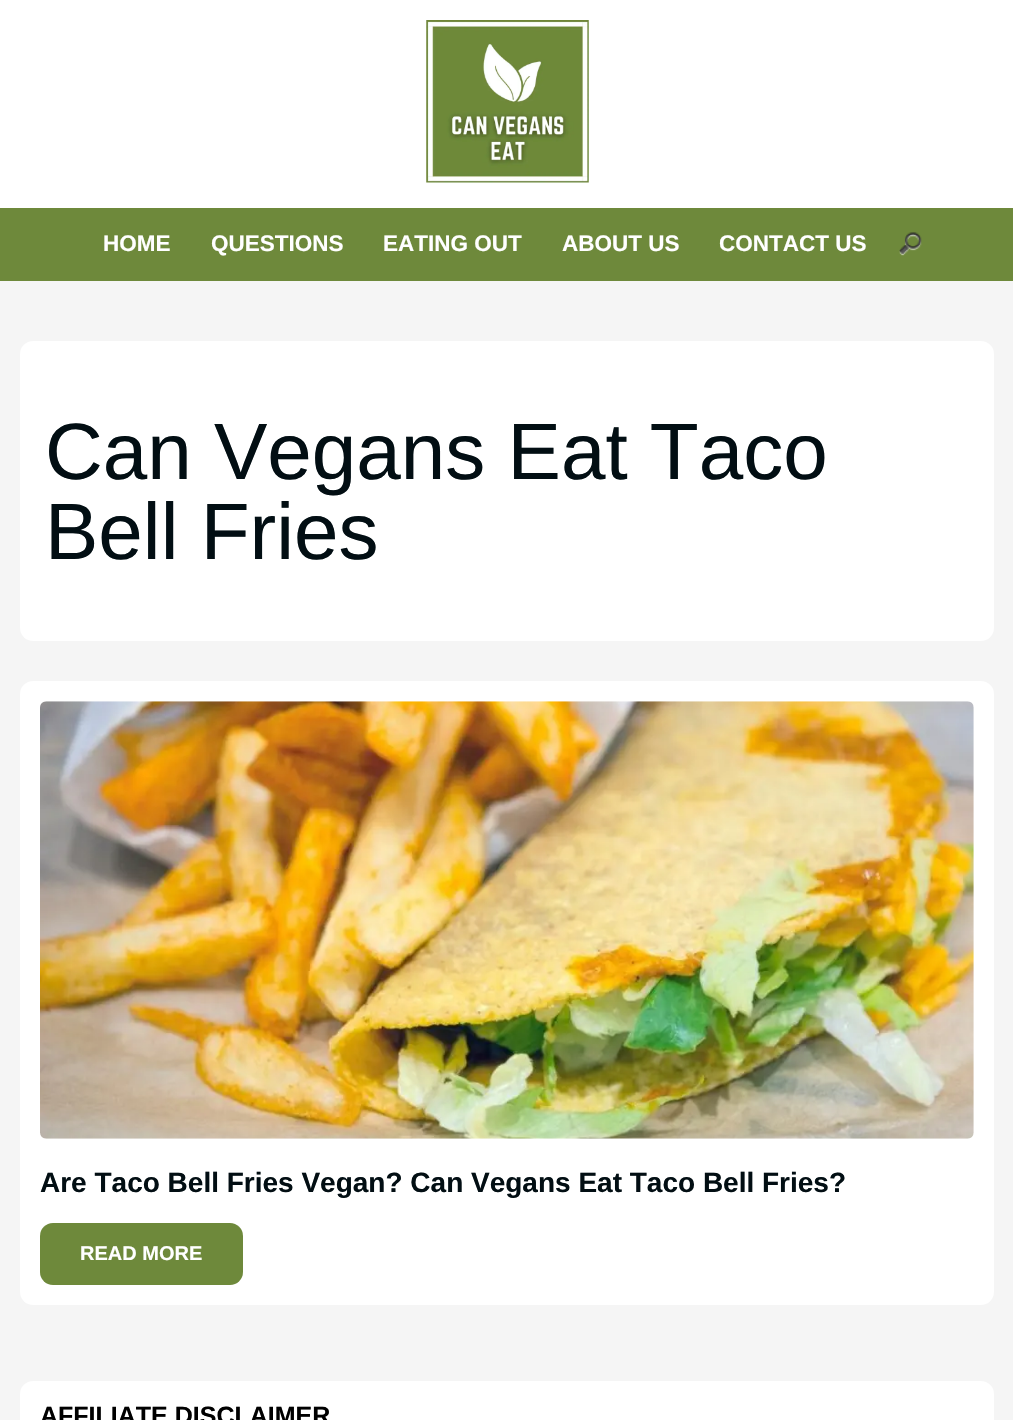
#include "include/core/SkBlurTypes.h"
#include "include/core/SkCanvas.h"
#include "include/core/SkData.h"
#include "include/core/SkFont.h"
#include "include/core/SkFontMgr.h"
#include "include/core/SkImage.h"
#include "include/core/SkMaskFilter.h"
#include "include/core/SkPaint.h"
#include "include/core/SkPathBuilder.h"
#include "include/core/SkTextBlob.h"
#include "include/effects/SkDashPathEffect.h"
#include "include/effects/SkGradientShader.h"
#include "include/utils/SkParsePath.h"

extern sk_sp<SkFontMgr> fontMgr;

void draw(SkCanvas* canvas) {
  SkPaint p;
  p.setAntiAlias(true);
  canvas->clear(SkColorSetRGB(245, 245, 245));
  p.setColor(SK_ColorWHITE);
  canvas->drawRect(SkRect::MakeLTRB(0, 0, 1013, 208), p);
  canvas->drawImageRect(SkImages::DeferredFromEncodedData(SkData::MakeFromFileName("images/1.png")), SkRect::MakeLTRB(426, 20, 589, 183), SkSamplingOptions());
  p.setColor(SkColorSetRGB(110, 137, 59));
  canvas->drawRect(SkRect::MakeLTRB(0, 208, 1013, 281), p);
  canvas->drawImageRect(SkImages::DeferredFromEncodedData(SkData::MakeFromFileName("images/2.png")), SkRect::MakeLTRB(899, 232, 922, 256), SkSamplingOptions());
  p.setColor(SK_ColorWHITE);
  canvas->drawRoundRect(SkRect::MakeLTRB(20, 341, 994, 641), 13, 13, p);
  canvas->drawRoundRect(SkRect::MakeLTRB(20, 681, 994, 1305), 13, 13, p);
  canvas->drawImageRect(SkImages::DeferredFromEncodedData(SkData::MakeFromFileName("images/3.png")), SkRect::MakeLTRB(40, 701, 974, 1139), SkSamplingOptions());
  p.setColor(SkColorSetRGB(110, 137, 59));
  canvas->drawRoundRect(SkRect::MakeLTRB(40, 1223, 243, 1285), 13, 13, p);
  p.setColor(SK_ColorWHITE);
  canvas->drawRoundRect(SkRect::MakeLTRB(20, 1381, 994, 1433), 13, 13, p);
  SkFont font1(fontMgr->matchFamilyStyle("Liberation Sans", SkFontStyle::Bold()), 22.5f);
  font1.setSubpixel(true);
  canvas->drawString("HOME", 103, 251, font1, p);
  canvas->drawString("QUESTIONS", 211, 251, font1, p);
  canvas->drawString("EATING OUT", 383, 251, font1, p);
  canvas->drawString("ABOUT US", 562, 251, font1, p);
  canvas->drawString("CONTACT US", 719, 251, font1, p);
  SkFont font2(fontMgr->matchFamilyStyle("Liberation Sans", SkFontStyle::Normal()), 80);
  font2.setSubpixel(true);
  p.setColor(SkColorSetRGB(2, 14, 19));
  canvas->drawString("Can Vegans Eat Taco", 45, 479, font2, p);
  canvas->drawString("Bell Fries", 45, 559, font2, p);
  SkFont font3(fontMgr->matchFamilyStyle("Liberation Sans", SkFontStyle::Bold()), 28);
  font3.setSubpixel(true);
  canvas->drawString("Are Taco Bell Fries Vegan? Can Vegans Eat Taco Bell Fries?", 40, 1192, font3, p);
  SkFont font4(fontMgr->matchFamilyStyle("Liberation Sans", SkFontStyle::Bold()), 20);
  font4.setSubpixel(true);
  p.setColor(SK_ColorWHITE);
  canvas->drawString("READ MORE", 80, 1260, font4, p);
  SkFont font5(fontMgr->matchFamilyStyle("Liberation Sans", SkFontStyle::Bold()), 25);
  font5.setSubpixel(true);
  p.setColor(SK_ColorBLACK);
  canvas->drawString("AFFILIATE DISCLAIMER", 40, 1424, font5, p);
}
